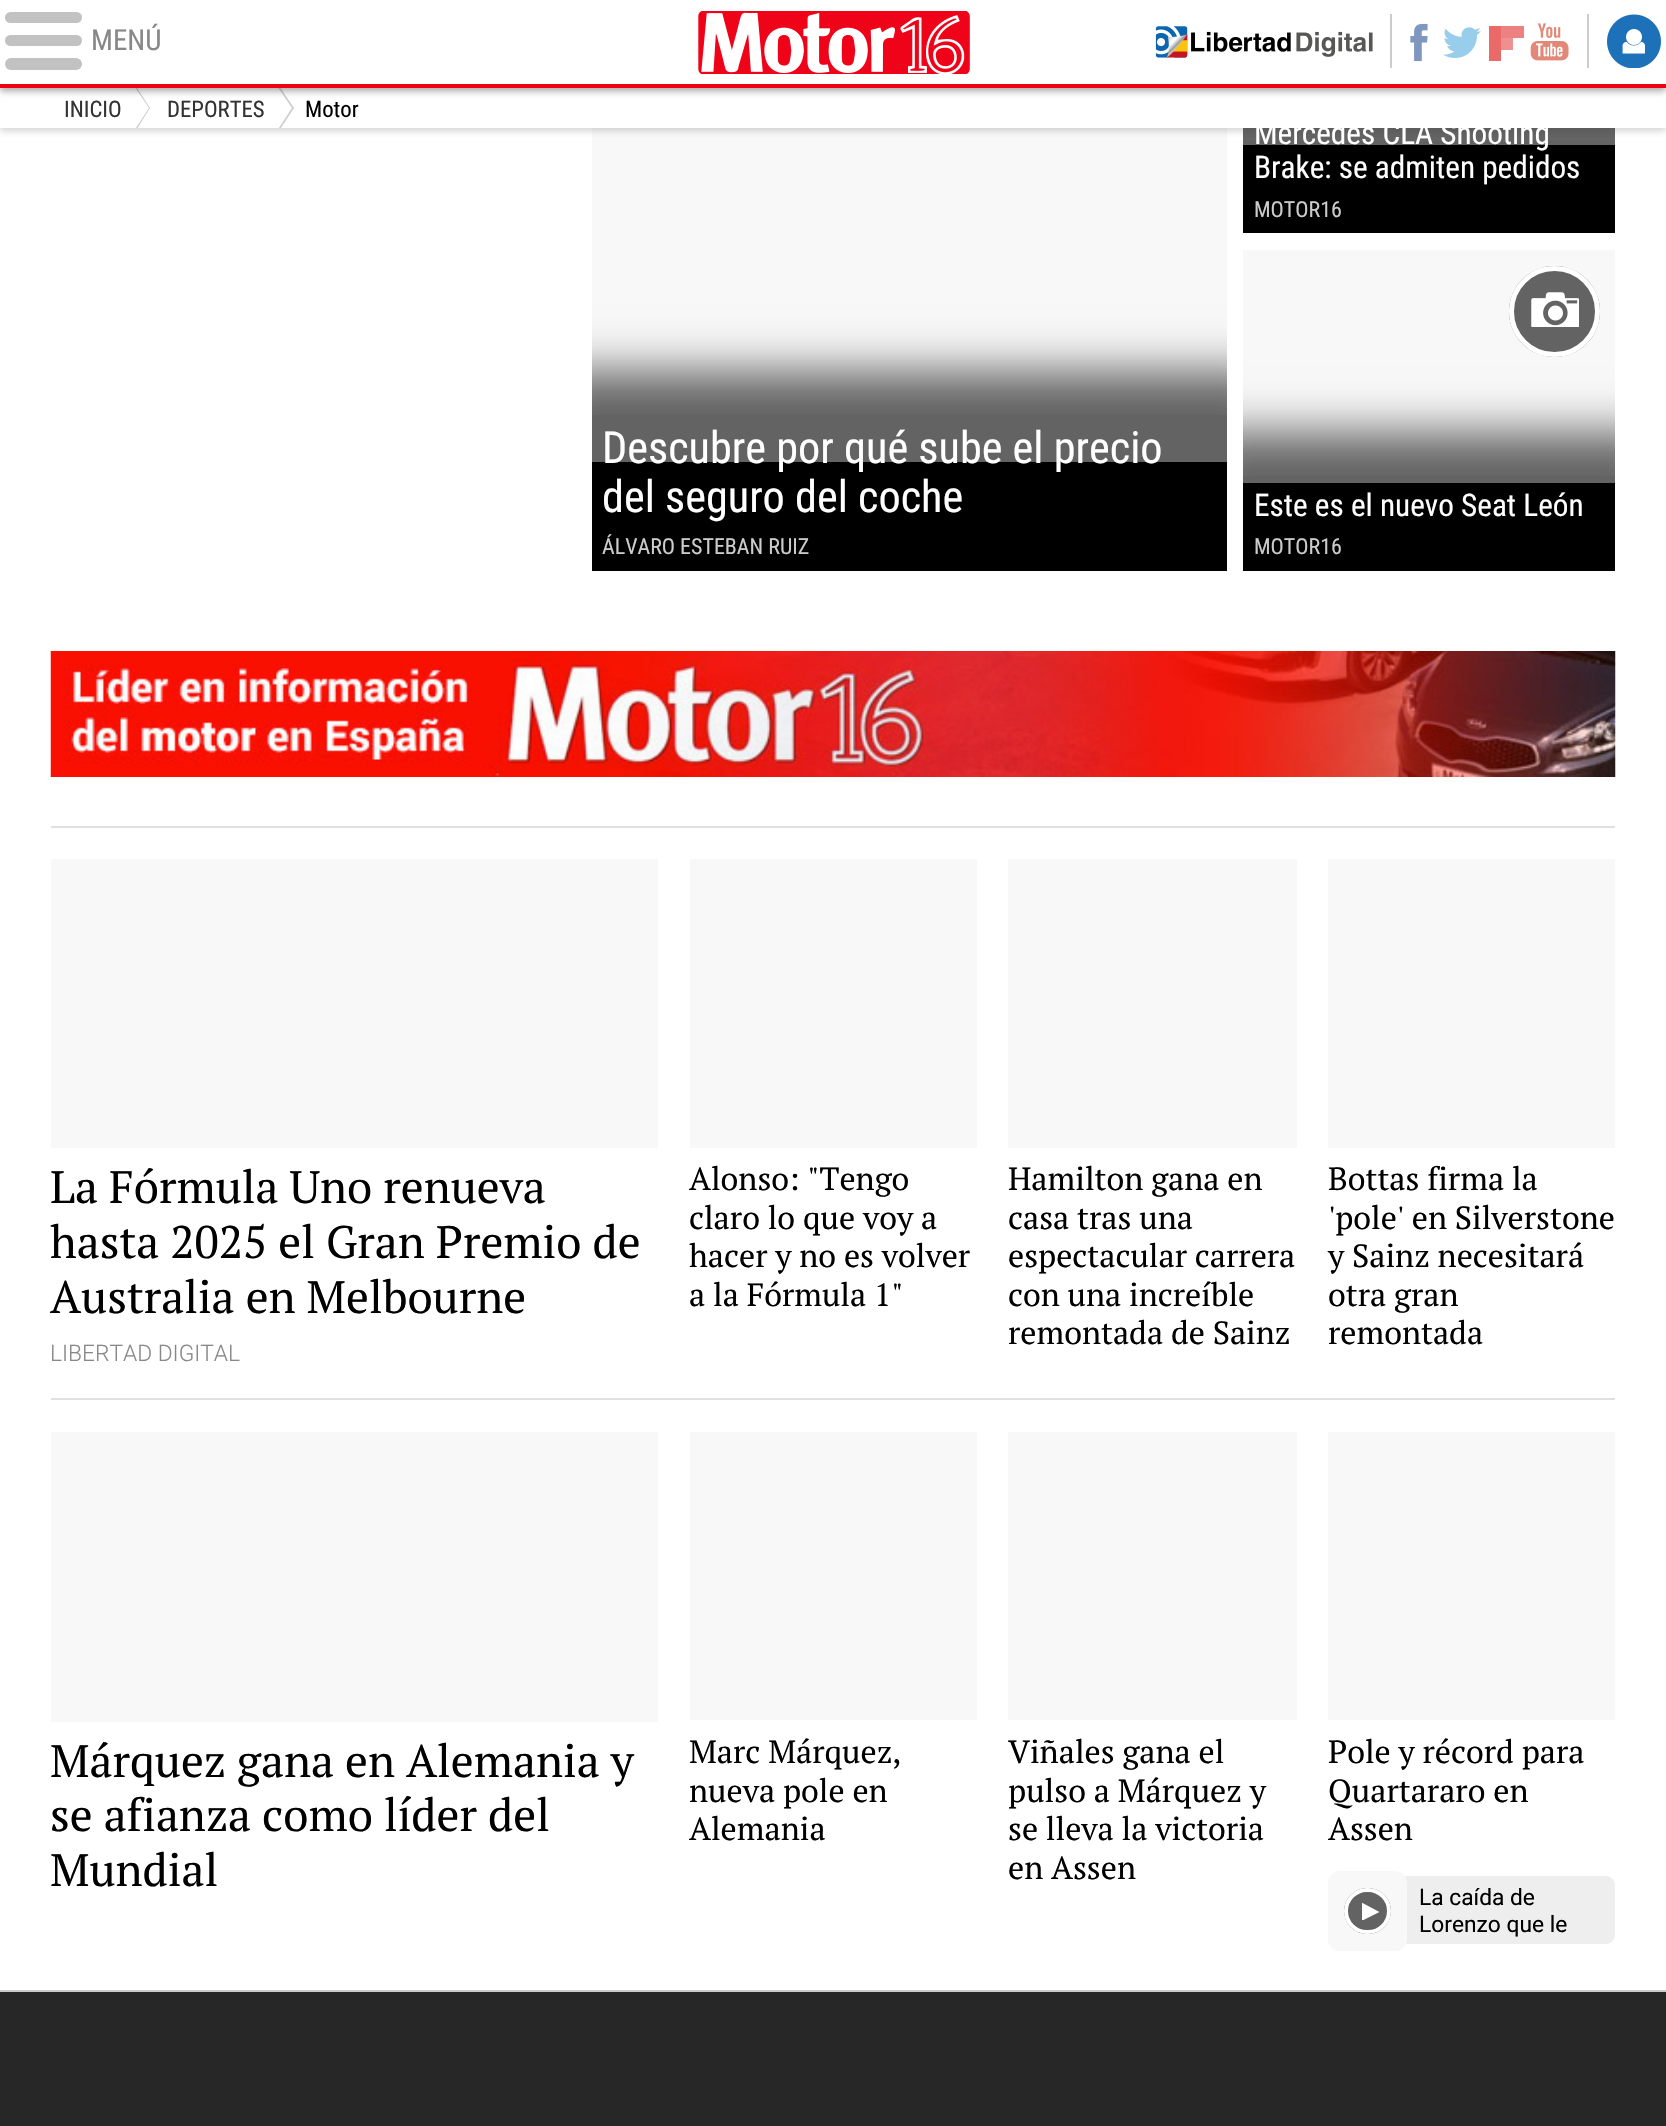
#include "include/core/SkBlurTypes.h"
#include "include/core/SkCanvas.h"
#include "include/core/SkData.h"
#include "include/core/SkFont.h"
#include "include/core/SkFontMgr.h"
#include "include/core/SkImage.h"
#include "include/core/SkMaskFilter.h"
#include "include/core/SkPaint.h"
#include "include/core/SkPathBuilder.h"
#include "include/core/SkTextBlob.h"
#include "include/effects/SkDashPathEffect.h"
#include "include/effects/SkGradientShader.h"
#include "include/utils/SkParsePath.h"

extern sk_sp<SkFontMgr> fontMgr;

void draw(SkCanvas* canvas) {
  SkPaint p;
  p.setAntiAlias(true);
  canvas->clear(SK_ColorWHITE);
  p.setColor(SkColorSetRGB(248, 248, 248));
  canvas->drawRect(SkRect::MakeLTRB(592, 128, 1227, 462), p);
  p.setColor(SK_ColorBLACK);
  canvas->drawRect(SkRect::MakeLTRB(1243, 145, 1615, 233), p);
  p.setColor(SkColorSetRGB(248, 248, 248));
  canvas->drawRect(SkRect::MakeLTRB(1243, 128, 1615, 145), p);
  canvas->save();
  canvas->clipRect(SkRect::MakeLTRB(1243, 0, 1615, 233));
  canvas->clipPath(SkPathBuilder(SkPathFillType::kEvenOdd).moveTo(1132, 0).lineTo(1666, 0).lineTo(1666, 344).lineTo(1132, 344).close().moveTo(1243, 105).lineTo(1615, 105).lineTo(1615, 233).lineTo(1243, 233).close().detach(), true);
  p.setColor(SkColorSetARGB(153, 0, 0, 0));
  p.setMaskFilter(SkMaskFilter::MakeBlur(kNormal_SkBlurStyle, 22));
  canvas->drawRect(SkRect::MakeLTRB(1199, 61, 1659, 277), p);
  p.setMaskFilter(nullptr);
  canvas->restore();
  canvas->drawRect(SkRect::MakeLTRB(1243, 128, 1615, 145), p);
  p.setColor(SkColorSetARGB(56, 50, 50, 50));
  p.setMaskFilter(SkMaskFilter::MakeBlur(kNormal_SkBlurStyle, 3.5f));
  canvas->drawRect(SkRect::MakeLTRB(0, 89, 1666, 131), p);
  p.setMaskFilter(nullptr);
  p.setColor(SK_ColorWHITE);
  canvas->drawRect(SkRect::MakeLTRB(0, 88, 1666, 128), p);
  canvas->save();
  canvas->clipRect(SkRect::MakeLTRB(51, 86, 362, 128));
  p.setColor(SkColorSetRGB(204, 204, 204));
  canvas->drawPath(SkPathBuilder().moveTo(130, 140).lineTo(130, 77).lineTo(150, 108).close().detach(), p);
  p.setColor(SK_ColorWHITE);
  canvas->drawPath(SkPathBuilder().moveTo(128, 140).lineTo(128, 77).lineTo(149, 108).close().detach(), p);
  p.setColor(SkColorSetRGB(204, 204, 204));
  canvas->drawPath(SkPathBuilder().moveTo(273, 140).lineTo(273, 77).lineTo(294, 108).close().detach(), p);
  p.setColor(SK_ColorWHITE);
  canvas->drawPath(SkPathBuilder().moveTo(271, 140).lineTo(271, 77).lineTo(292, 108).close().detach(), p);
  canvas->restore();
  p.setColor(SkColorSetARGB(112, 50, 50, 50));
  p.setMaskFilter(SkMaskFilter::MakeBlur(kNormal_SkBlurStyle, 3.5f));
  canvas->drawRect(SkRect::MakeLTRB(0, 4, 1666, 91), p);
  p.setMaskFilter(nullptr);
  p.setColor(SK_ColorWHITE);
  canvas->drawRect(SkRect::MakeLTRB(0, 0, 1666, 84), p);
  p.setColor(SkColorSetRGB(237, 2, 22));
  canvas->drawRect(SkRect::MakeLTRB(0, 84, 1666, 88), p);
  p.setColor(SkColorSetRGB(194, 194, 194));
  canvas->drawRoundRect(SkRect::MakeLTRB(5, 12, 82, 23), 5.5f, 5.5f, p);
  canvas->drawRoundRect(SkRect::MakeLTRB(5, 35, 82, 46), 5.5f, 5.5f, p);
  canvas->drawRoundRect(SkRect::MakeLTRB(5, 58, 82, 70), 6, 6, p);
  canvas->drawImageRect(SkImages::DeferredFromEncodedData(SkData::MakeFromFileName("images/1.png")), SkRect::MakeLTRB(698, 11, 970, 74), SkSamplingOptions());
  p.setColor(SkColorSetRGB(204, 204, 204));
  canvas->drawRect(SkRect::MakeLTRB(1390, 14, 1392, 68), p);
  canvas->drawImageRect(SkImages::DeferredFromEncodedData(SkData::MakeFromFileName("images/2.png")), SkRect::MakeLTRB(1155, 26, 1373, 58), SkSamplingOptions());
  canvas->drawRect(SkRect::MakeLTRB(1587, 14, 1589, 68), p);
  canvas->drawImageRect(SkImages::DeferredFromEncodedData(SkData::MakeFromFileName("images/3.png")), SkRect::MakeLTRB(1410, 23, 1428, 62), SkSamplingOptions());
  canvas->drawImageRect(SkImages::DeferredFromEncodedData(SkData::MakeFromFileName("images/4.png")), SkRect::MakeLTRB(1443, 27, 1481, 58), SkSamplingOptions());
  p.setColor(SkColorSetRGB(234, 105, 105));
  canvas->drawRect(SkRect::MakeLTRB(1489, 26, 1501, 61), p);
  p.setColor(SkColorSetRGB(237, 128, 128));
  canvas->drawPath(SkPathBuilder().moveTo(1512.5f, 26).lineTo(1501, 26).lineTo(1501, 38).lineTo(1524, 38).lineTo(1524, 26).close().detach(), p);
  p.setColor(SkColorSetRGB(239, 143, 143));
  canvas->drawRect(SkRect::MakeLTRB(1501, 38, 1513, 50), p);
  canvas->drawImageRect(SkImages::DeferredFromEncodedData(SkData::MakeFromFileName("images/5.png")), SkRect::MakeLTRB(1530, 23, 1569, 61), SkSamplingOptions());
  canvas->drawImageRect(SkImages::DeferredFromEncodedData(SkData::MakeFromFileName("images/6.png")), SkRect::MakeLTRB(1607, 14, 1661, 68), SkSamplingOptions());
  p.setColor(SK_ColorBLACK);
  canvas->drawRect(SkRect::MakeLTRB(592, 462, 1227, 571), p);
  canvas->save();
  canvas->clipRect(SkRect::MakeLTRB(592, 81, 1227, 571));
  canvas->clipPath(SkPathBuilder(SkPathFillType::kEvenOdd).moveTo(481, 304).lineTo(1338, 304).lineTo(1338, 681).lineTo(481, 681).close().moveTo(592, 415).lineTo(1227, 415).lineTo(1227, 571).lineTo(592, 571).close().detach(), true);
  p.setColor(SkColorSetARGB(153, 0, 0, 0));
  p.setMaskFilter(SkMaskFilter::MakeBlur(kNormal_SkBlurStyle, 22));
  canvas->drawRect(SkRect::MakeLTRB(548, 371, 1271, 614), p);
  p.setMaskFilter(nullptr);
  canvas->restore();
  canvas->drawRect(SkRect::MakeLTRB(592, 415, 1227, 462), p);
  p.setColor(SK_ColorBLACK);
  canvas->drawRect(SkRect::MakeLTRB(1243, 483, 1615, 571), p);
  p.setColor(SkColorSetRGB(248, 248, 248));
  canvas->drawRect(SkRect::MakeLTRB(1243, 250, 1615, 483), p);
  p.setColor(SkColorSetRGB(99, 99, 99));
  canvas->drawCircle(1554.5f, 311.5f, 45.5f, p);
  canvas->drawImageRect(SkImages::DeferredFromEncodedData(SkData::MakeFromFileName("images/7.png")), SkRect::MakeLTRB(1531, 292, 1579, 327), SkSamplingOptions());
  p.setStyle(SkPaint::kStroke_Style);
  p.setStrokeWidth(5);
  p.setColor(SK_ColorWHITE);
  canvas->drawCircle(1554.5f, 311.5f, 43, p);
  canvas->save();
  canvas->clipRect(SkRect::MakeLTRB(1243, 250, 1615, 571));
  canvas->clipPath(SkPathBuilder(SkPathFillType::kEvenOdd).moveTo(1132, 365).lineTo(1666, 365).lineTo(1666, 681).lineTo(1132, 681).close().moveTo(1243, 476).lineTo(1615, 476).lineTo(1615, 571).lineTo(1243, 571).close().detach(), true);
  p.setStyle(SkPaint::kFill_Style);
  p.setColor(SkColorSetARGB(153, 0, 0, 0));
  p.setMaskFilter(SkMaskFilter::MakeBlur(kNormal_SkBlurStyle, 22));
  canvas->drawRect(SkRect::MakeLTRB(1199, 432, 1659, 614), p);
  p.setMaskFilter(nullptr);
  canvas->restore();
  canvas->drawRect(SkRect::MakeLTRB(1243, 476, 1615, 483), p);
  p.setColor(SkColorSetRGB(225, 224, 224));
  canvas->drawRect(SkRect::MakeLTRB(51, 826, 1615, 828), p);
  canvas->drawImageRect(SkImages::DeferredFromEncodedData(SkData::MakeFromFileName("images/8.png")), SkRect::MakeLTRB(50, 651, 1616, 777), SkSamplingOptions());
  canvas->drawRect(SkRect::MakeLTRB(51, 1398, 1615, 1400), p);
  p.setColor(SkColorSetRGB(248, 248, 248));
  canvas->drawRect(SkRect::MakeLTRB(51, 859, 658, 1148), p);
  canvas->drawRect(SkRect::MakeLTRB(690, 859, 977, 1148), p);
  canvas->drawRect(SkRect::MakeLTRB(1008, 859, 1297, 1148), p);
  canvas->drawRect(SkRect::MakeLTRB(1328, 859, 1615, 1148), p);
  canvas->drawRect(SkRect::MakeLTRB(51, 1432, 658, 1722), p);
  canvas->drawRect(SkRect::MakeLTRB(690, 1432, 977, 1720), p);
  canvas->drawRect(SkRect::MakeLTRB(1008, 1432, 1297, 1720), p);
  canvas->drawRect(SkRect::MakeLTRB(1328, 1432, 1615, 1720), p);
  p.setColor(SkColorSetRGB(238, 238, 238));
  canvas->drawRoundRect(SkRect::MakeLTRB(1351, 1876, 1615, 1944), 9, 9, p);
  p.setColor(SkColorSetRGB(248, 248, 248));
  canvas->drawRoundRect(SkRect::MakeLTRB(1328, 1871, 1407, 1951), 12, 12, p);
  p.setColor(SkColorSetRGB(99, 99, 99));
  canvas->drawRoundRect(SkRect::MakeLTRB(1344, 1888, 1391, 1934), 23, 23, p);
  canvas->save();
  canvas->clipRect(SkRect::MakeLTRB(1362, 1902, 1379, 1920));
  p.setColor(SK_ColorWHITE);
  canvas->drawPath(SkPathBuilder().moveTo(1361.5f, 1921).lineTo(1361.5f, 1902.5f).lineTo(1379.5f, 1912).close().detach(), p);
  canvas->restore();
  p.setStyle(SkPaint::kStroke_Style);
  p.setStrokeWidth(4);
  canvas->drawRoundRect(SkRect::MakeLTRB(1346, 1890, 1389, 1932), 21, 21, p);
  p.setStyle(SkPaint::kFill_Style);
  p.setColor(SkColorSetRGB(39, 39, 39));
  canvas->drawRect(SkRect::MakeLTRB(0, 1992, 1666, 2126), p);
  p.setColor(SkColorSetRGB(204, 204, 204));
  canvas->drawRect(SkRect::MakeLTRB(0, 1990, 1666, 1992), p);
  SkFont font1(fontMgr->matchFamilyStyle("Roboto Condensed", SkFontStyle::Normal()), 29);
  font1.setSubpixel(true);
  p.setColor(SkColorSetRGB(136, 136, 136));
  canvas->drawString("MENÚ", 91, 50, font1, p);
  SkFont font2(fontMgr->matchFamilyStyle("Roboto Condensed", SkFontStyle::Normal()), 22.75f);
  font2.setSubpixel(true);
  p.setColor(SkColorSetRGB(51, 51, 51));
  canvas->drawString("INICIO", 64, 117, font2, p);
  canvas->drawString("DEPORTES", 167, 117, font2, p);
  p.setColor(SK_ColorBLACK);
  canvas->drawString("Motor", 305, 117, font2, p);
  SkFont font3(fontMgr->matchFamilyStyle("Roboto Condensed", SkFontStyle::Normal()), 44.25f);
  font3.setSubpixel(true);
  p.setColor(SK_ColorWHITE);
  canvas->drawString("Descubre por qué sube el precio", 602, 463, font3, p);
  canvas->drawString("del seguro del coche", 602, 512, font3, p);
  SkFont font4(fontMgr->matchFamilyStyle("Roboto Condensed", SkFontStyle::Normal()), 22);
  font4.setSubpixel(true);
  p.setColor(SkColorSetRGB(204, 204, 204));
  canvas->drawString("ÁLVARO ESTEBAN RUIZ", 602, 554, font4, p);
  SkFont font5(fontMgr->matchFamilyStyle("Roboto Condensed", SkFontStyle::Normal()), 31.25f);
  font5.setSubpixel(true);
  p.setColor(SK_ColorWHITE);
  canvas->drawString("Mercedes CLA Shooting", 1254, 144, font5, p);
  canvas->drawString("Brake: se admiten pedidos", 1254, 178, font5, p);
  p.setColor(SkColorSetRGB(204, 204, 204));
  canvas->drawString("MOTOR16", 1254, 217, font4, p);
  p.setColor(SK_ColorWHITE);
  canvas->drawString("Este es el nuevo Seat León", 1254, 516, font5, p);
  p.setColor(SkColorSetRGB(204, 204, 204));
  canvas->drawString("MOTOR16", 1254, 554, font4, p);
  SkFont font6(fontMgr->matchFamilyStyle("PT Serif", SkFontStyle::Normal()), 45.5f);
  font6.setSubpixel(true);
  p.setColor(SK_ColorBLACK);
  canvas->drawString("La Fórmula Uno renueva", 50, 1203, font6, p);
  canvas->drawString("hasta 2025 el Gran Premio de", 50, 1258, font6, p);
  canvas->drawString("Australia en Melbourne", 50, 1313, font6, p);
  SkFont font7(fontMgr->matchFamilyStyle("Roboto", SkFontStyle(300, SkFontStyle::kNormal_Width, SkFontStyle::kUpright_Slant)), 22.75f);
  font7.setSubpixel(true);
  p.setColor(SkColorSetRGB(136, 136, 136));
  canvas->drawString("LIBERTAD DIGITAL", 50, 1361, font7, p);
  SkFont font8(fontMgr->matchFamilyStyle("PT Serif", SkFontStyle::Normal()), 32.1f);
  font8.setSubpixel(true);
  p.setColor(SK_ColorBLACK);
  canvas->drawString("Alonso: \"Tengo", 689, 1190, font8, p);
  canvas->drawString("claro lo que voy a", 689, 1229, font8, p);
  canvas->drawString("hacer y no es volver", 689, 1267, font8, p);
  canvas->drawString("a la Fórmula 1\"", 689, 1306, font8, p);
  canvas->drawString("Hamilton gana en", 1008, 1190, font8, p);
  canvas->drawString("casa tras una", 1008, 1229, font8, p);
  canvas->drawString("espectacular carrera", 1008, 1267, font8, p);
  canvas->drawString("con una increíble", 1008, 1306, font8, p);
  canvas->drawString("remontada de Sainz", 1008, 1344, font8, p);
  canvas->drawString("Bottas firma la", 1328, 1190, font8, p);
  canvas->drawString("'pole' en Silverstone", 1328, 1229, font8, p);
  canvas->drawString("y Sainz necesitará", 1328, 1267, font8, p);
  canvas->drawString("otra gran", 1328, 1306, font8, p);
  canvas->drawString("remontada", 1328, 1344, font8, p);
  canvas->drawString("Márquez gana en Alemania y", 50, 1777, font6, p);
  canvas->drawString("se afianza como líder del", 50, 1831, font6, p);
  canvas->drawString("Mundial", 50, 1886, font6, p);
  canvas->drawString("Marc Márquez,", 689, 1763, font8, p);
  canvas->drawString("nueva pole en", 689, 1802, font8, p);
  canvas->drawString("Alemania", 689, 1840, font8, p);
  canvas->drawString("Viñales gana el", 1008, 1763, font8, p);
  canvas->drawString("pulso a Márquez y", 1008, 1802, font8, p);
  canvas->drawString("se lleva la victoria", 1008, 1840, font8, p);
  canvas->drawString("en Assen", 1008, 1879, font8, p);
  canvas->drawString("Pole y récord para", 1328, 1763, font8, p);
  canvas->drawString("Quartararo en", 1328, 1802, font8, p);
  canvas->drawString("Assen", 1328, 1840, font8, p);
  SkFont font9(fontMgr->matchFamilyStyle("Roboto", SkFontStyle::Normal()), 22.75f);
  font9.setSubpixel(true);
  canvas->drawString("La caída de", 1419, 1905, font9, p);
  canvas->drawString("Lorenzo que le", 1419, 1932, font9, p);
}
